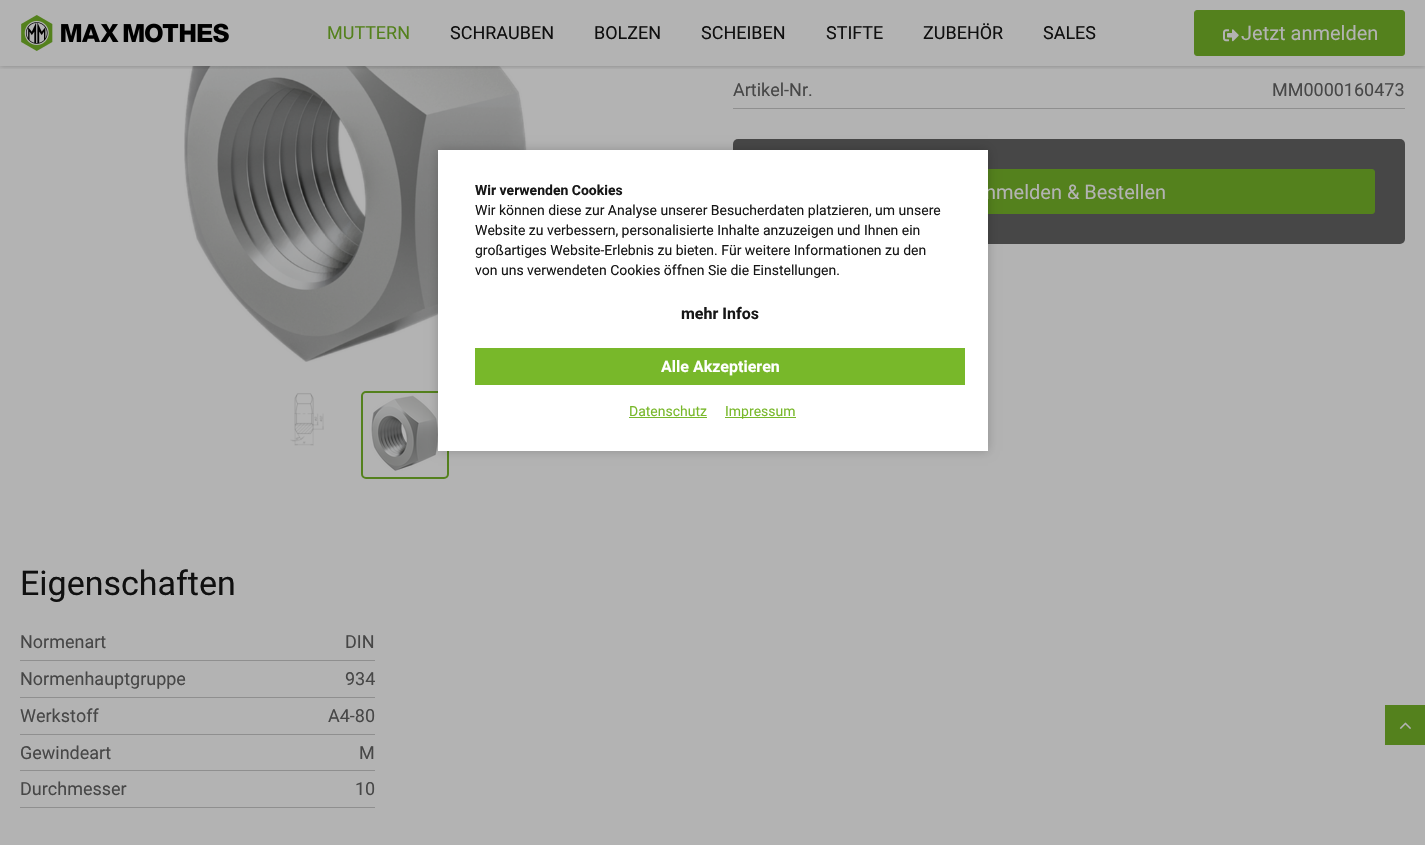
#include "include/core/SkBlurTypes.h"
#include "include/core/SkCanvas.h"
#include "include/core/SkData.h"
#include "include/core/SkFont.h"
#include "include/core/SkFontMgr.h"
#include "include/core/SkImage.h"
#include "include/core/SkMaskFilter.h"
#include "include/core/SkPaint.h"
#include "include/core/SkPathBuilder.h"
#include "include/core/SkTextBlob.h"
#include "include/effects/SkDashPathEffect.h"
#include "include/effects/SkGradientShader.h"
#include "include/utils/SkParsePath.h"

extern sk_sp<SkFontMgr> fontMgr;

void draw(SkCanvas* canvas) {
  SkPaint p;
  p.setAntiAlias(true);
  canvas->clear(SkColorSetRGB(179, 179, 179));
  canvas->drawImageRect(SkImages::DeferredFromEncodedData(SkData::MakeFromFileName("images/3.png")), SkRect::MakeLTRB(184, 66, 528, 362), SkSamplingOptions());
  canvas->save();
  canvas->clipRect(SkRect::MakeLTRB(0, 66, 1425, 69));
  p.setColor(SkColorSetARGB(64, 0, 0, 0));
  p.setMaskFilter(SkMaskFilter::MakeBlur(kNormal_SkBlurStyle, 2.5f));
  canvas->drawRect(SkRect::MakeLTRB(0, 0, 1425, 66), p);
  p.setMaskFilter(nullptr);
  canvas->restore();
  canvas->drawImageRect(SkImages::DeferredFromEncodedData(SkData::MakeFromFileName("images/1.png")), SkRect::MakeLTRB(21, 15, 229, 51), SkSamplingOptions());
  p.setColor(SkColorSetRGB(84, 129, 29));
  canvas->drawRoundRect(SkRect::MakeLTRB(1194.5f, 10.5f, 1404.5f, 55.5f), 2.5f, 2.5f, p);
  p.setStyle(SkPaint::kStroke_Style);
  p.setStrokeWidth(1);
  canvas->drawRoundRect(SkRect::MakeLTRB(1194.5f, 10.5f, 1404.5f, 55.5f), 2.5f, 2.5f, p);
  canvas->drawImageRect(SkImages::DeferredFromEncodedData(SkData::MakeFromFileName("images/2.png")), SkRect::MakeLTRB(1223, 29, 1239, 42), SkSamplingOptions());
  canvas->drawImageRect(SkImages::DeferredFromEncodedData(SkData::MakeFromFileName("images/4.png")), SkRect::MakeLTRB(290, 393, 324, 446), SkSamplingOptions());
  p.setStrokeWidth(2);
  canvas->drawRoundRect(SkRect::MakeLTRB(362, 392, 448, 478), 4, 4, p);
  canvas->drawImageRect(SkImages::DeferredFromEncodedData(SkData::MakeFromFileName("images/5.png")), SkRect::MakeLTRB(365, 393, 445, 471), SkSamplingOptions());
  p.setStyle(SkPaint::kFill_Style);
  p.setColor(SkColorSetRGB(143, 143, 143));
  canvas->drawRect(SkRect::MakeLTRB(733, 108, 1405, 109), p);
  p.setColor(SkColorSetRGB(71, 71, 71));
  canvas->drawRoundRect(SkRect::MakeLTRB(733, 139, 1405, 244), 5, 5, p);
  p.setColor(SkColorSetRGB(84, 129, 29));
  canvas->drawRoundRect(SkRect::MakeLTRB(763.5f, 169.5f, 1374.5f, 213.5f), 2.5f, 2.5f, p);
  p.setStyle(SkPaint::kStroke_Style);
  p.setStrokeWidth(1);
  canvas->drawRoundRect(SkRect::MakeLTRB(763.5f, 169.5f, 1374.5f, 213.5f), 2.5f, 2.5f, p);
  p.setStyle(SkPaint::kFill_Style);
  p.setColor(SkColorSetRGB(143, 143, 143));
  canvas->drawRect(SkRect::MakeLTRB(20, 660, 375, 661), p);
  canvas->drawRect(SkRect::MakeLTRB(20, 697, 375, 698), p);
  canvas->drawRect(SkRect::MakeLTRB(20, 734, 375, 735), p);
  canvas->drawRect(SkRect::MakeLTRB(20, 770, 375, 771), p);
  canvas->drawRect(SkRect::MakeLTRB(20, 807, 375, 808), p);
  p.setColor(SkColorSetARGB(51, 0, 0, 0));
  p.setMaskFilter(SkMaskFilter::MakeBlur(kNormal_SkBlurStyle, 5));
  canvas->drawRect(SkRect::MakeLTRB(438, 150, 988, 451), p);
  p.setMaskFilter(nullptr);
  p.setColor(SkColorSetRGB(84, 129, 29));
  canvas->drawRect(SkRect::MakeLTRB(1385, 705, 1425, 745), p);
  canvas->drawImageRect(SkImages::DeferredFromEncodedData(SkData::MakeFromFileName("images/6.png")), SkRect::MakeLTRB(1399, 722, 1411, 729), SkSamplingOptions());
  SkFont font1(fontMgr->matchFamilyStyle("Roboto", SkFontStyle::Normal()), 18);
  font1.setSubpixel(true);
  canvas->drawString("MUTTERN", 327, 39, font1, p);
  p.setColor(SkColorSetRGB(16, 16, 16));
  canvas->drawString("SCHRAUBEN", 450, 39, font1, p);
  canvas->drawString("BOLZEN", 594, 39, font1, p);
  canvas->drawString("SCHEIBEN", 701, 39, font1, p);
  canvas->drawString("STIFTE", 826, 39, font1, p);
  canvas->drawString("ZUBEHÖR", 923, 39, font1, p);
  canvas->drawString("SALES", 1043, 39, font1, p);
  SkFont font2(fontMgr->matchFamilyStyle("Roboto", SkFontStyle::Normal()), 20);
  font2.setSubpixel(true);
  p.setColor(SkColorSetRGB(179, 179, 179));
  canvas->drawString("Jetzt anmelden", 1241, 40, font2, p);
  p.setColor(SkColorSetRGB(71, 71, 71));
  canvas->drawString("Artikel-Nr.", 733, 96, font1, p);
  canvas->drawString("MM0000160473", 1272, 96, font1, p);
  p.setColor(SkColorSetRGB(179, 179, 179));
  canvas->drawString("nmelden & Bestellen", 985, 199, font2, p);
  SkFont font3(fontMgr->matchFamilyStyle("Roboto", SkFontStyle::Normal()), 34);
  font3.setSubpixel(true);
  p.setColor(SkColorSetRGB(16, 16, 16));
  canvas->drawString("Eigenschaften", 20, 595, font3, p);
  p.setColor(SkColorSetRGB(71, 71, 71));
  canvas->drawString("Normenart", 20, 648, font1, p);
  canvas->drawString("DIN", 345, 648, font1, p);
  canvas->drawString("Normenhauptgruppe", 20, 685, font1, p);
  canvas->drawString("934", 345, 685, font1, p);
  canvas->drawString("Werkstoff", 20, 722, font1, p);
  canvas->drawString("A4-80", 328, 722, font1, p);
  canvas->drawString("Gewindeart", 20, 759, font1, p);
  canvas->drawString("M", 359, 759, font1, p);
  canvas->drawString("Durchmesser", 20, 795, font1, p);
  canvas->drawString("10", 355, 795, font1, p);
  p.setColor(SK_ColorWHITE);
  canvas->drawRect(SkRect::MakeLTRB(438, 150, 988, 451), p);
  SkFont font4(fontMgr->matchFamilyStyle("Roboto", SkFontStyle::Bold()), 14);
  font4.setSubpixel(true);
  p.setColor(SkColorSetRGB(23, 23, 23));
  canvas->drawString("Wir verwenden Cookies", 475, 195, font4, p);
  SkFont font5(fontMgr->matchFamilyStyle("Roboto", SkFontStyle::Normal()), 14);
  font5.setSubpixel(true);
  canvas->drawString("Wir können diese zur Analyse unserer Besucherdaten platzieren, um unsere", 475, 215, font5, p);
  canvas->drawString("Website zu verbessern, personalisierte Inhalte anzuzeigen und Ihnen ein", 475, 235, font5, p);
  canvas->drawString("großartiges Website-Erlebnis zu bieten. Für weitere Informationen zu den", 475, 255, font5, p);
  canvas->drawString("von uns verwendeten Cookies öffnen Sie die Einstellungen.", 475, 275, font5, p);
  SkFont font6(fontMgr->matchFamilyStyle("Roboto", SkFontStyle::Bold()), 16);
  font6.setSubpixel(true);
  canvas->drawString("mehr Infos", 681, 319, font6, p);
  p.setColor(SkColorSetRGB(120, 184, 42));
  canvas->drawRect(SkRect::MakeLTRB(475, 348, 965, 385), p);
  p.setColor(SK_ColorWHITE);
  canvas->drawString("Alle Akzeptieren", 661, 372, font6, p);
  p.setColor(SkColorSetRGB(120, 184, 42));
  canvas->drawString("Datenschutz", 629, 416, font5, p);
  canvas->drawRect(SkRect::MakeLTRB(629, 417, 707, 418), p);
  canvas->drawRect(SkRect::MakeLTRB(725, 417, 796, 418), p);
  canvas->drawString("Impressum", 725, 416, font5, p);
}
